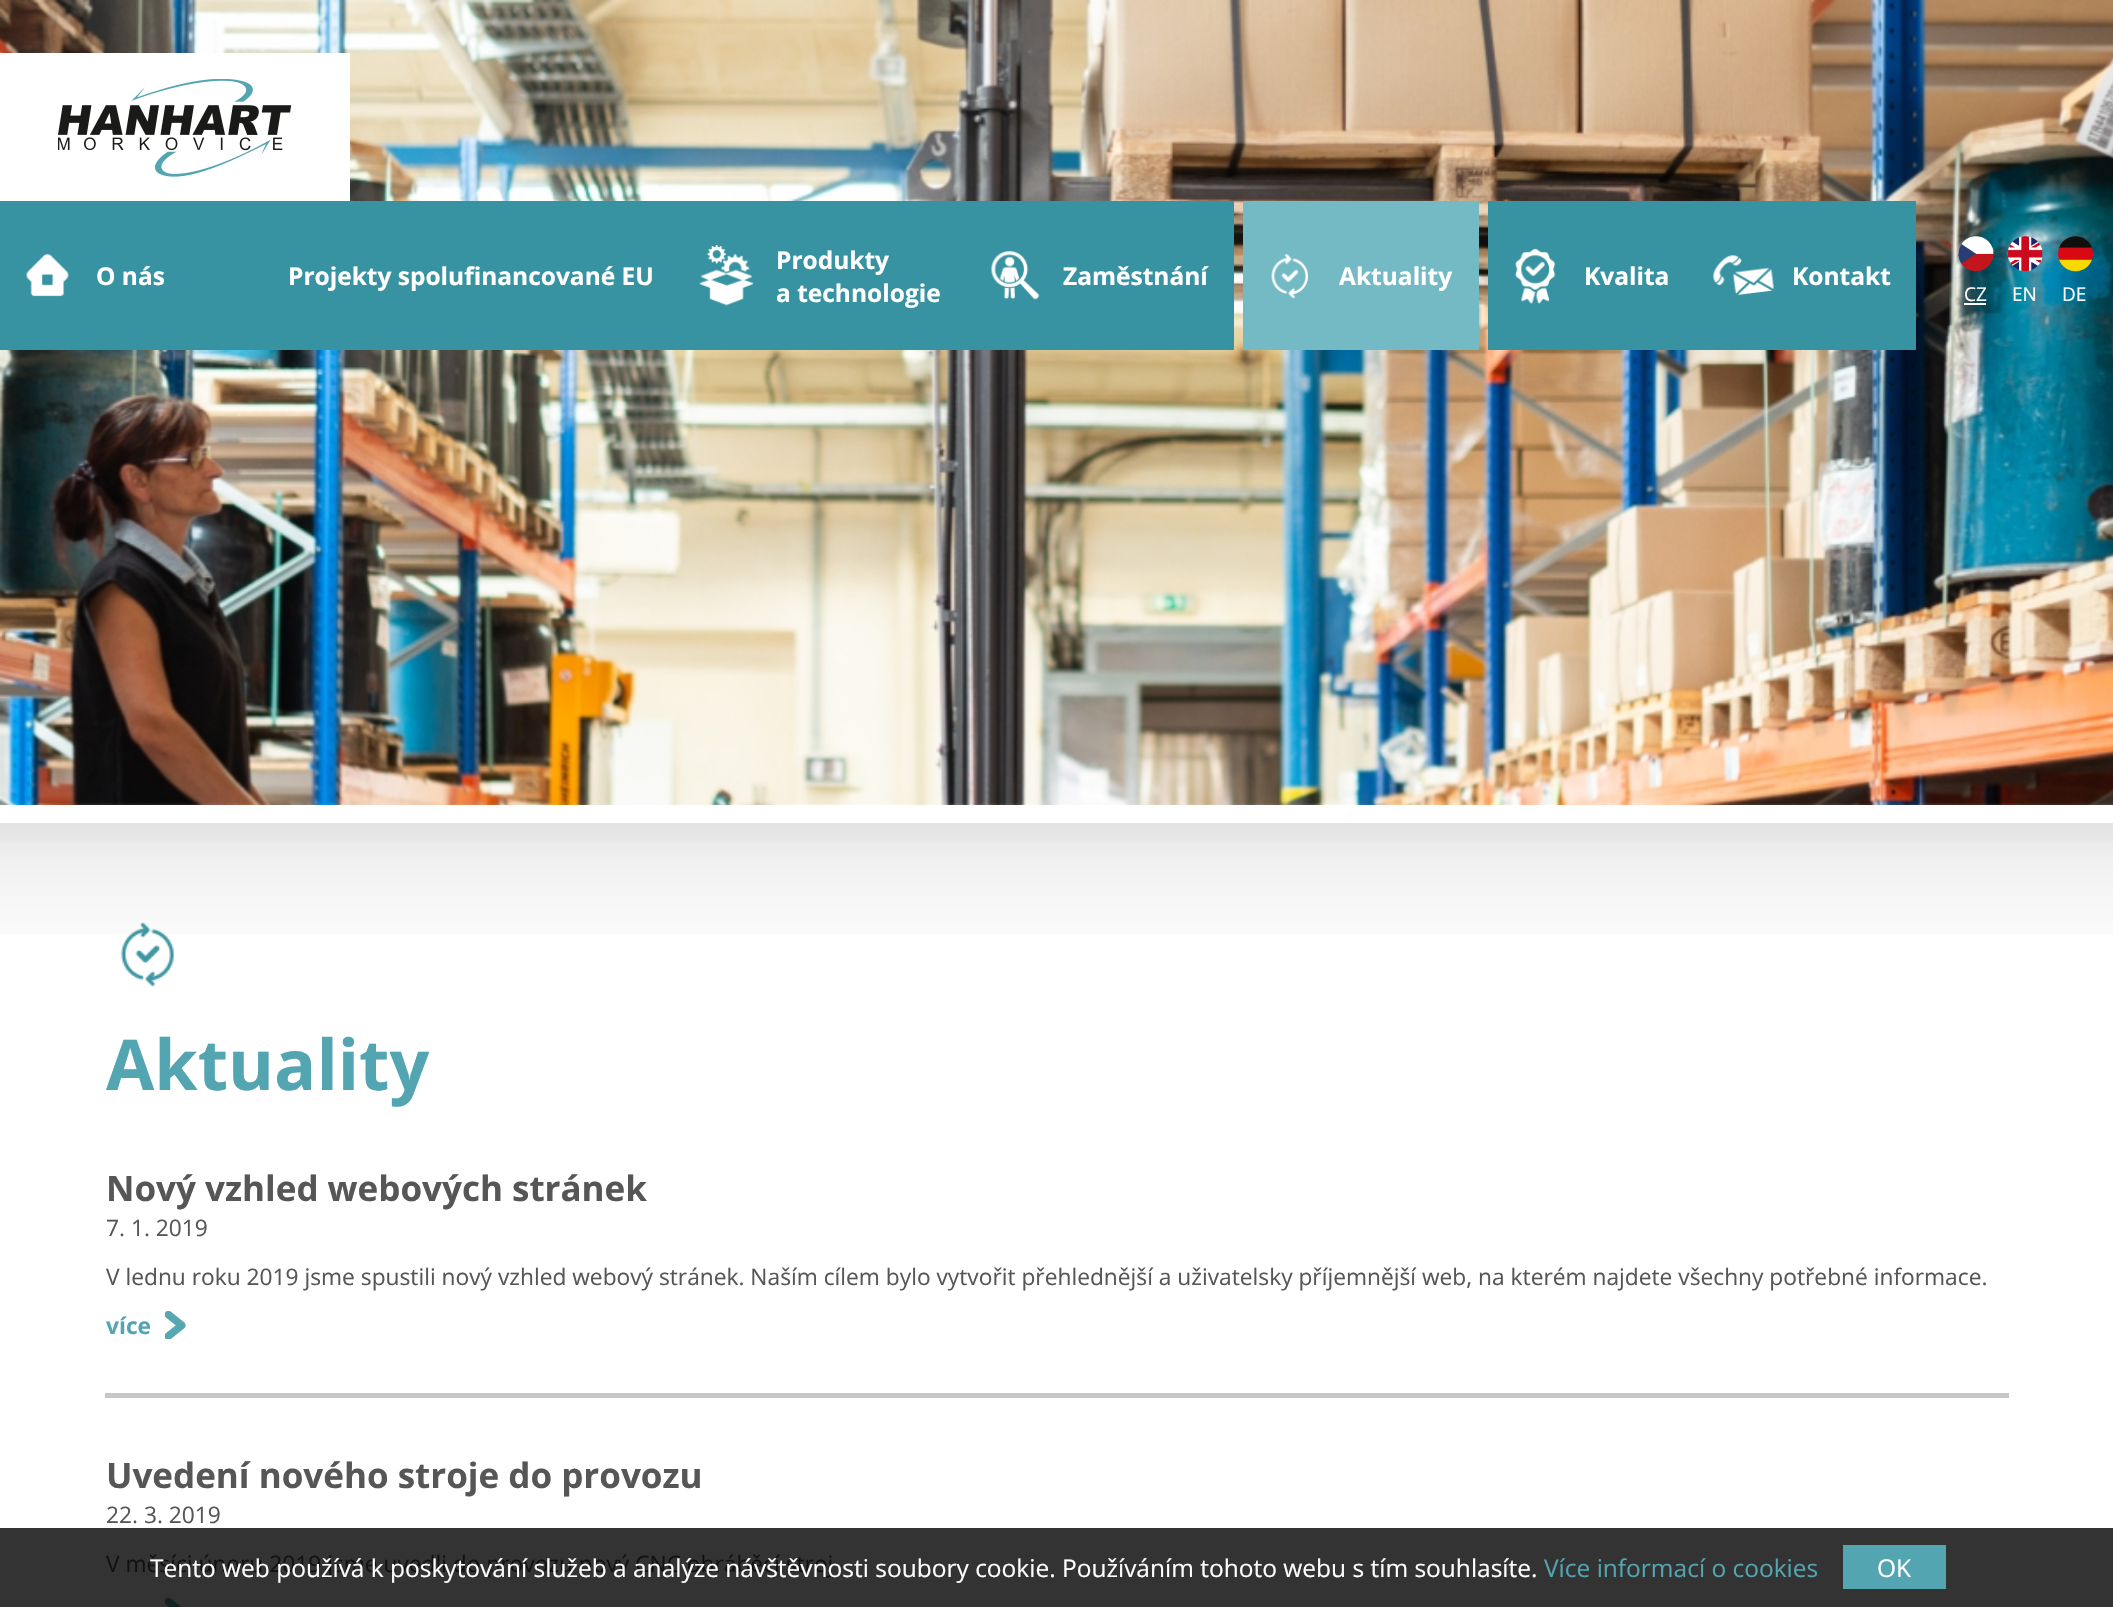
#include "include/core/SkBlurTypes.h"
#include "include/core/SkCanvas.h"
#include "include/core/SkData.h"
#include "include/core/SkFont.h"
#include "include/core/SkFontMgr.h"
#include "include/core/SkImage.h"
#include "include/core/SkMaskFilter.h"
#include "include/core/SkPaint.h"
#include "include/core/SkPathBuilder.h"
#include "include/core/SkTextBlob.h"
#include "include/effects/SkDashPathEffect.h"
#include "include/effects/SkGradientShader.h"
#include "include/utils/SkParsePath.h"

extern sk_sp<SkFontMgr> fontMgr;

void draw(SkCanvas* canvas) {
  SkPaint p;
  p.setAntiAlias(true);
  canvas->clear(SK_ColorWHITE);
  p.setColor(SkColorSetRGB(51, 51, 51));
  canvas->drawRect(SkRect::MakeLTRB(0, 1528, 2113, 1607), p);
  canvas->drawImageRect(SkImages::DeferredFromEncodedData(SkData::MakeFromFileName("images/1.png")), SkRect::MakeLTRB(0, 0, 2113, 805), SkSamplingOptions());
  p.setColor(SK_ColorWHITE);
  canvas->drawRect(SkRect::MakeLTRB(0, 53, 350, 201), p);
  canvas->drawImageRect(SkImages::DeferredFromEncodedData(SkData::MakeFromFileName("images/2.png")), SkRect::MakeLTRB(58, 79, 292, 177), SkSamplingOptions());
  p.setColor(SkColorSetRGB(55, 147, 161));
  canvas->drawRect(SkRect::MakeLTRB(0, 201, 1234, 350), p);
  canvas->drawImageRect(SkImages::DeferredFromEncodedData(SkData::MakeFromFileName("images/3.png")), SkRect::MakeLTRB(26, 254, 69, 297), SkSamplingOptions());
  canvas->drawImageRect(SkImages::DeferredFromEncodedData(SkData::MakeFromFileName("images/4.png")), SkRect::MakeLTRB(699, 245, 754, 306), SkSamplingOptions());
  canvas->drawImageRect(SkImages::DeferredFromEncodedData(SkData::MakeFromFileName("images/5.png")), SkRect::MakeLTRB(991, 251, 1040, 300), SkSamplingOptions());
  p.setColor(SkColorSetRGB(115, 186, 197));
  canvas->drawRect(SkRect::MakeLTRB(1243, 201, 1479, 350), p);
  canvas->drawImageRect(SkImages::DeferredFromEncodedData(SkData::MakeFromFileName("images/6.png")), SkRect::MakeLTRB(1271, 254, 1308, 299), SkSamplingOptions());
  p.setColor(SkColorSetRGB(55, 147, 161));
  canvas->drawRect(SkRect::MakeLTRB(1488, 201, 1916, 350), p);
  canvas->drawImageRect(SkImages::DeferredFromEncodedData(SkData::MakeFromFileName("images/7.png")), SkRect::MakeLTRB(1515, 248, 1556, 304), SkSamplingOptions());
  canvas->drawImageRect(SkImages::DeferredFromEncodedData(SkData::MakeFromFileName("images/8.png")), SkRect::MakeLTRB(1713, 255, 1774, 296), SkSamplingOptions());
  canvas->drawImageRect(SkImages::DeferredFromEncodedData(SkData::MakeFromFileName("images/9.png")), SkRect::MakeLTRB(1958, 236, 1994, 272), SkSamplingOptions());
  p.setColor(SK_ColorWHITE);
  canvas->drawRect(SkRect::MakeLTRB(1964, 303, 1986, 305), p);
  canvas->drawImageRect(SkImages::DeferredFromEncodedData(SkData::MakeFromFileName("images/10.png")), SkRect::MakeLTRB(2007, 236, 2043, 272), SkSamplingOptions());
  canvas->drawImageRect(SkImages::DeferredFromEncodedData(SkData::MakeFromFileName("images/11.png")), SkRect::MakeLTRB(2058, 236, 2093, 272), SkSamplingOptions());
  canvas->drawImageRect(SkImages::DeferredFromEncodedData(SkData::MakeFromFileName("images/12.png")), SkRect::MakeLTRB(0, 823, 2113, 934), SkSamplingOptions());
  canvas->drawImageRect(SkImages::DeferredFromEncodedData(SkData::MakeFromFileName("images/13.png")), SkRect::MakeLTRB(120, 922, 174, 987), SkSamplingOptions());
  p.setColor(SkColorSetRGB(198, 198, 198));
  canvas->drawRect(SkRect::MakeLTRB(105, 1393, 2009, 1398), p);
  canvas->drawImageRect(SkImages::DeferredFromEncodedData(SkData::MakeFromFileName("images/14.png")), SkRect::MakeLTRB(165, 1311, 186, 1339), SkSamplingOptions());
  canvas->drawImageRect(SkImages::DeferredFromEncodedData(SkData::MakeFromFileName("images/15.png")), SkRect::MakeLTRB(165, 1598, 182, 1607), SkSamplingOptions());
  p.setColor(SkColorSetRGB(82, 165, 177));
  canvas->drawRect(SkRect::MakeLTRB(1843, 1545, 1946, 1589), p);
  SkFont font1(fontMgr->matchFamilyStyle("Open Sans", SkFontStyle::Bold()), 24.5f);
  font1.setSubpixel(true);
  p.setColor(SK_ColorWHITE);
  canvas->drawString("O nás", 96, 285, font1, p);
  canvas->drawString("Projekty spolufinancované EU", 288, 285, font1, p);
  canvas->drawString("Produkty", 776, 269, font1, p);
  canvas->drawString("a technologie", 776, 302, font1, p);
  canvas->drawString("Zaměstnání", 1063, 285, font1, p);
  canvas->drawString("Aktuality", 1339, 285, font1, p);
  canvas->drawString("Kvalita", 1584, 285, font1, p);
  canvas->drawString("Kontakt", 1792, 285, font1, p);
  SkFont font2(fontMgr->matchFamilyStyle("Open Sans", SkFontStyle::Normal()), 19);
  font2.setSubpixel(true);
  canvas->drawString("CZ", 1964, 301, font2, p);
  canvas->drawString("EN", 2012, 301, font2, p);
  canvas->drawString("DE", 2062, 301, font2, p);
  SkFont font3(fontMgr->matchFamilyStyle("Open Sans", SkFontStyle::Bold()), 70);
  font3.setSubpixel(true);
  p.setColor(SkColorSetRGB(82, 165, 177));
  canvas->drawString("Aktuality", 106, 1090, font3, p);
  SkFont font4(fontMgr->matchFamilyStyle("Open Sans", SkFontStyle::Bold()), 35);
  font4.setSubpixel(true);
  p.setColor(SkColorSetRGB(86, 86, 86));
  canvas->drawString("Nový vzhled webových stránek", 106, 1201, font4, p);
  SkFont font5(fontMgr->matchFamilyStyle("Open Sans", SkFontStyle::Normal()), 22.75f);
  font5.setSubpixel(true);
  canvas->drawString("7. 1. 2019", 106, 1236, font5, p);
  canvas->drawString("V lednu roku 2019 jsme spustili nový vzhled webový stránek. Naším cílem bylo vytvořit přehlednější a uživatelsky příjemnější web, na kterém najdete všechny potřebné informace.", 106, 1285, font5, p);
  SkFont font6(fontMgr->matchFamilyStyle("Open Sans", SkFontStyle::Bold()), 22.75f);
  font6.setSubpixel(true);
  p.setColor(SkColorSetRGB(82, 165, 177));
  canvas->drawString("více", 106, 1334, font6, p);
  p.setColor(SkColorSetRGB(86, 86, 86));
  canvas->drawString("Uvedení nového stroje do provozu", 106, 1488, font4, p);
  canvas->drawString("22. 3. 2019", 106, 1523, font5, p);
  p.setColor(SkColorSetRGB(17, 17, 17));
  canvas->drawString("V měsíci únoru 2019 jsme uvedli do provozu nový CNC obráběcí stroj", 106, 1572, font5, p);
  SkFont font7(fontMgr->matchFamilyStyle("Open Sans", SkFontStyle::Normal()), 24.5f);
  font7.setSubpixel(true);
  p.setColor(SK_ColorWHITE);
  canvas->drawString("Tento web používá k poskytování služeb a analýze návštěvnosti soubory cookie. Používáním tohoto webu s tím souhlasíte.", 150, 1577, font7, p);
  p.setColor(SkColorSetRGB(82, 165, 177));
  canvas->drawString("Více informací o cookies", 1544, 1577, font7, p);
  p.setColor(SK_ColorWHITE);
  canvas->drawString("OK", 1877, 1577, font7, p);
}
